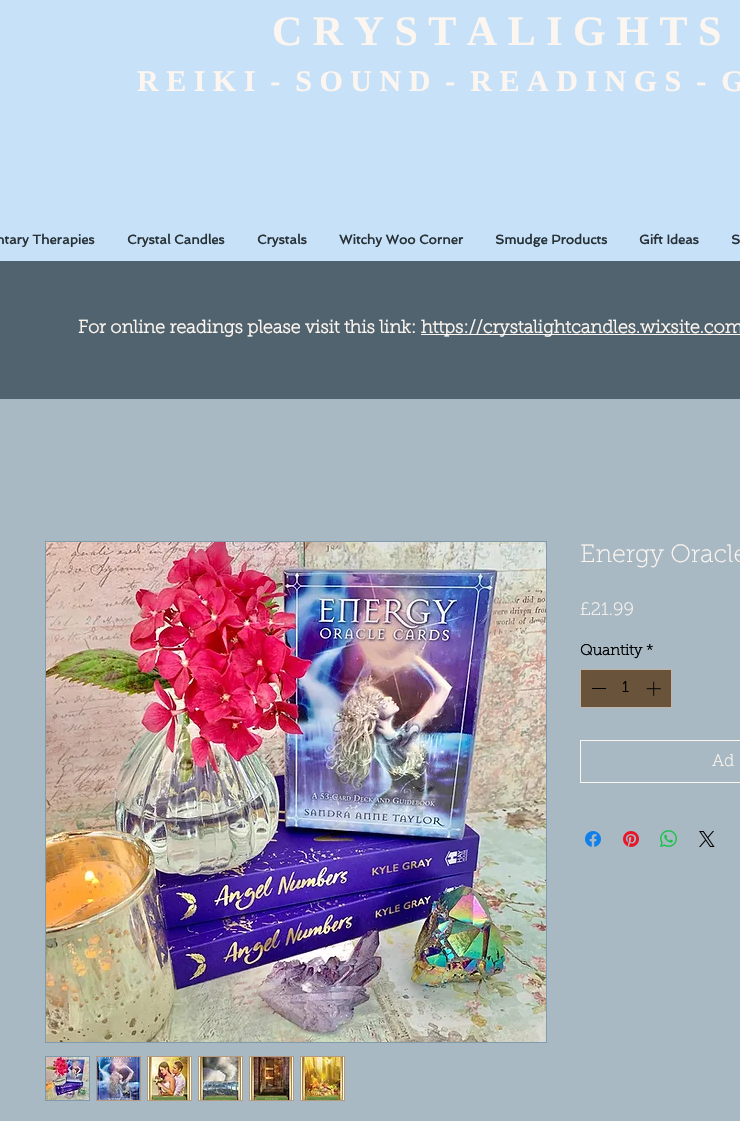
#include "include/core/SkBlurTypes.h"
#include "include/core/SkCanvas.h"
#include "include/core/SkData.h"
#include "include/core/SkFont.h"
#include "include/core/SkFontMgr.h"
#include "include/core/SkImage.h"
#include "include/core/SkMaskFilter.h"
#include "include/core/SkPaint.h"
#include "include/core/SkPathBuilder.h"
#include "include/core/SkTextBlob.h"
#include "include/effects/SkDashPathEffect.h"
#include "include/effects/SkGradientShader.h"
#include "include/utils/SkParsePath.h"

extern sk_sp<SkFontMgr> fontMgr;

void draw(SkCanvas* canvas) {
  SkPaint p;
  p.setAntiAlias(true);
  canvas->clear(SkColorSetRGB(199, 226, 248));
  p.setColor(SkColorSetRGB(80, 99, 110));
  canvas->drawRect(SkRect::MakeLTRB(0, 261, 740, 399), p);
  p.setColor(SkColorSetRGB(253, 246, 240));
  canvas->drawRect(SkRect::MakeLTRB(421, 334, 740, 335), p);
  p.setColor(SkColorSetRGB(168, 185, 196));
  canvas->drawRect(SkRect::MakeLTRB(0, 399, 740, 1121), p);
  p.setStyle(SkPaint::kStroke_Style);
  p.setStrokeWidth(1);
  p.setColor(SkColorSetRGB(128, 155, 171));
  canvas->drawRect(SkRect::MakeLTRB(45.5f, 541.5f, 546.5f, 1042.5f), p);
  canvas->drawImageRect(SkImages::DeferredFromEncodedData(SkData::MakeFromFileName("images/1.png")), SkRect::MakeLTRB(46, 542, 546, 1042), SkSamplingOptions());
  p.setColor(SkColorSetRGB(126, 154, 171));
  canvas->drawRect(SkRect::MakeLTRB(45.5f, 1056.5f, 89.5f, 1100.5f), p);
  canvas->drawImageRect(SkImages::DeferredFromEncodedData(SkData::MakeFromFileName("images/2.png")), SkRect::MakeLTRB(46, 1057, 89, 1100), SkSamplingOptions());
  p.setColor(SkColorSetRGB(180, 155, 127));
  canvas->drawRect(SkRect::MakeLTRB(96.5f, 1056.5f, 140.5f, 1100.5f), p);
  canvas->drawImageRect(SkImages::DeferredFromEncodedData(SkData::MakeFromFileName("images/3.png")), SkRect::MakeLTRB(97, 1057, 140, 1100), SkSamplingOptions());
  canvas->drawRect(SkRect::MakeLTRB(147.5f, 1056.5f, 191.5f, 1100.5f), p);
  canvas->drawImageRect(SkImages::DeferredFromEncodedData(SkData::MakeFromFileName("images/4.png")), SkRect::MakeLTRB(148, 1057, 191, 1100), SkSamplingOptions());
  canvas->drawRect(SkRect::MakeLTRB(198.5f, 1056.5f, 242.5f, 1100.5f), p);
  canvas->drawImageRect(SkImages::DeferredFromEncodedData(SkData::MakeFromFileName("images/5.png")), SkRect::MakeLTRB(199, 1057, 242, 1100), SkSamplingOptions());
  canvas->drawRect(SkRect::MakeLTRB(249.5f, 1056.5f, 293.5f, 1100.5f), p);
  canvas->drawImageRect(SkImages::DeferredFromEncodedData(SkData::MakeFromFileName("images/6.png")), SkRect::MakeLTRB(250, 1057, 293, 1100), SkSamplingOptions());
  canvas->drawRect(SkRect::MakeLTRB(300.5f, 1056.5f, 344.5f, 1100.5f), p);
  canvas->drawImageRect(SkImages::DeferredFromEncodedData(SkData::MakeFromFileName("images/7.png")), SkRect::MakeLTRB(301, 1057, 344, 1100), SkSamplingOptions());
  p.setStyle(SkPaint::kFill_Style);
  p.setColor(SkColorSetRGB(105, 83, 58));
  canvas->drawRect(SkRect::MakeLTRB(580.5f, 669.5f, 671.5f, 707.5f), p);
  p.setStyle(SkPaint::kStroke_Style);
  p.setColor(SkColorSetRGB(194, 181, 167));
  canvas->drawRect(SkRect::MakeLTRB(580.5f, 669.5f, 671.5f, 707.5f), p);
  p.setStyle(SkPaint::kFill_Style);
  p.setColor(SK_ColorBLACK);
  canvas->drawRect(SkRect::MakeLTRB(592, 688, 606, 689), p);
  canvas->drawImageRect(SkImages::DeferredFromEncodedData(SkData::MakeFromFileName("images/8.png")), SkRect::MakeLTRB(646, 681, 661, 696), SkSamplingOptions());
  p.setStyle(SkPaint::kStroke_Style);
  p.setColor(SkColorSetRGB(253, 246, 240));
  canvas->drawRect(SkRect::MakeLTRB(580.5f, 740.5f, 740.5f, 782.5f), p);
  canvas->drawImageRect(SkImages::DeferredFromEncodedData(SkData::MakeFromFileName("images/9.png")), SkRect::MakeLTRB(585, 831, 601, 847), SkSamplingOptions());
  canvas->drawImageRect(SkImages::DeferredFromEncodedData(SkData::MakeFromFileName("images/10.png")), SkRect::MakeLTRB(623, 831, 639, 847), SkSamplingOptions());
  canvas->drawImageRect(SkImages::DeferredFromEncodedData(SkData::MakeFromFileName("images/11.png")), SkRect::MakeLTRB(660, 830, 677, 847), SkSamplingOptions());
  canvas->drawImageRect(SkImages::DeferredFromEncodedData(SkData::MakeFromFileName("images/12.png")), SkRect::MakeLTRB(699, 831, 715, 847), SkSamplingOptions());
  SkFont font1(fontMgr->matchFamilyStyle("Liberation Serif", SkFontStyle::Bold()), 42);
  font1.setSubpixel(true);
  p.setStyle(SkPaint::kFill_Style);
  canvas->drawString("C R Y S T A L I G H T S", 272, 45, font1, p);
  SkFont font2(fontMgr->matchFamilyStyle("Liberation Serif", SkFontStyle::Bold()), 30);
  font2.setSubpixel(true);
  canvas->drawString("R E I K I  -  S O U N D  -  R E A D I N G S  -  G", 137, 91, font2, p);
  SkFont font3(fontMgr->matchFamilyStyle("Spinnaker", SkFontStyle::Bold()), 13);
  font3.setSubpixel(true);
  p.setColor(SkColorSetRGB(40, 49, 55));
  canvas->drawString("ntary Therapies", -4, 244, font3, p);
  canvas->drawString("Crystal Candles", 127, 244, font3, p);
  canvas->drawString("Crystals", 257, 244, font3, p);
  canvas->drawString("Witchy Woo Corner", 339, 244, font3, p);
  canvas->drawString("Smudge Products", 495, 244, font3, p);
  canvas->drawString("Gift Ideas", 639, 244, font3, p);
  canvas->drawString("S", 731, 244, font3, p);
  SkFont font4(fontMgr->matchFamilyStyle("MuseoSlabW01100", SkFontStyle::Bold()), 18);
  font4.setSubpixel(true);
  p.setColor(SkColorSetRGB(253, 246, 240));
  canvas->drawString("For online readings please visit this link:", 78, 333, font4, p);
  canvas->drawString("https://crystalightcandles.wixsite.com", 421, 333, font4, p);
  SkFont font5(fontMgr->matchFamilyStyle("MuseoSlabW01100", SkFontStyle(100, SkFontStyle::kNormal_Width, SkFontStyle::kUpright_Slant)), 25);
  font5.setSubpixel(true);
  canvas->drawString("Energy Oracle", 580, 562, font5, p);
  SkFont font6(fontMgr->matchFamilyStyle("MuseoSlabW01100", SkFontStyle(100, SkFontStyle::kNormal_Width, SkFontStyle::kUpright_Slant)), 18);
  font6.setSubpixel(true);
  canvas->drawString("£21.99", 580, 615, font6, p);
  SkFont font7(fontMgr->matchFamilyStyle("MuseoSlabW01100", SkFontStyle::Bold()), 15);
  font7.setSubpixel(true);
  p.setColor(SK_ColorBLACK);
  canvas->drawString("Quantity *", 580, 655, font7, p);
  canvas->drawString("1", 622, 692, font7, p);
  SkFont font8(fontMgr->matchFamilyStyle("MuseoSlabW01100", SkFontStyle(100, SkFontStyle::kNormal_Width, SkFontStyle::kUpright_Slant)), 17);
  font8.setSubpixel(true);
  p.setColor(SkColorSetRGB(253, 246, 240));
  canvas->drawString("Ad", 712, 766, font8, p);
}
